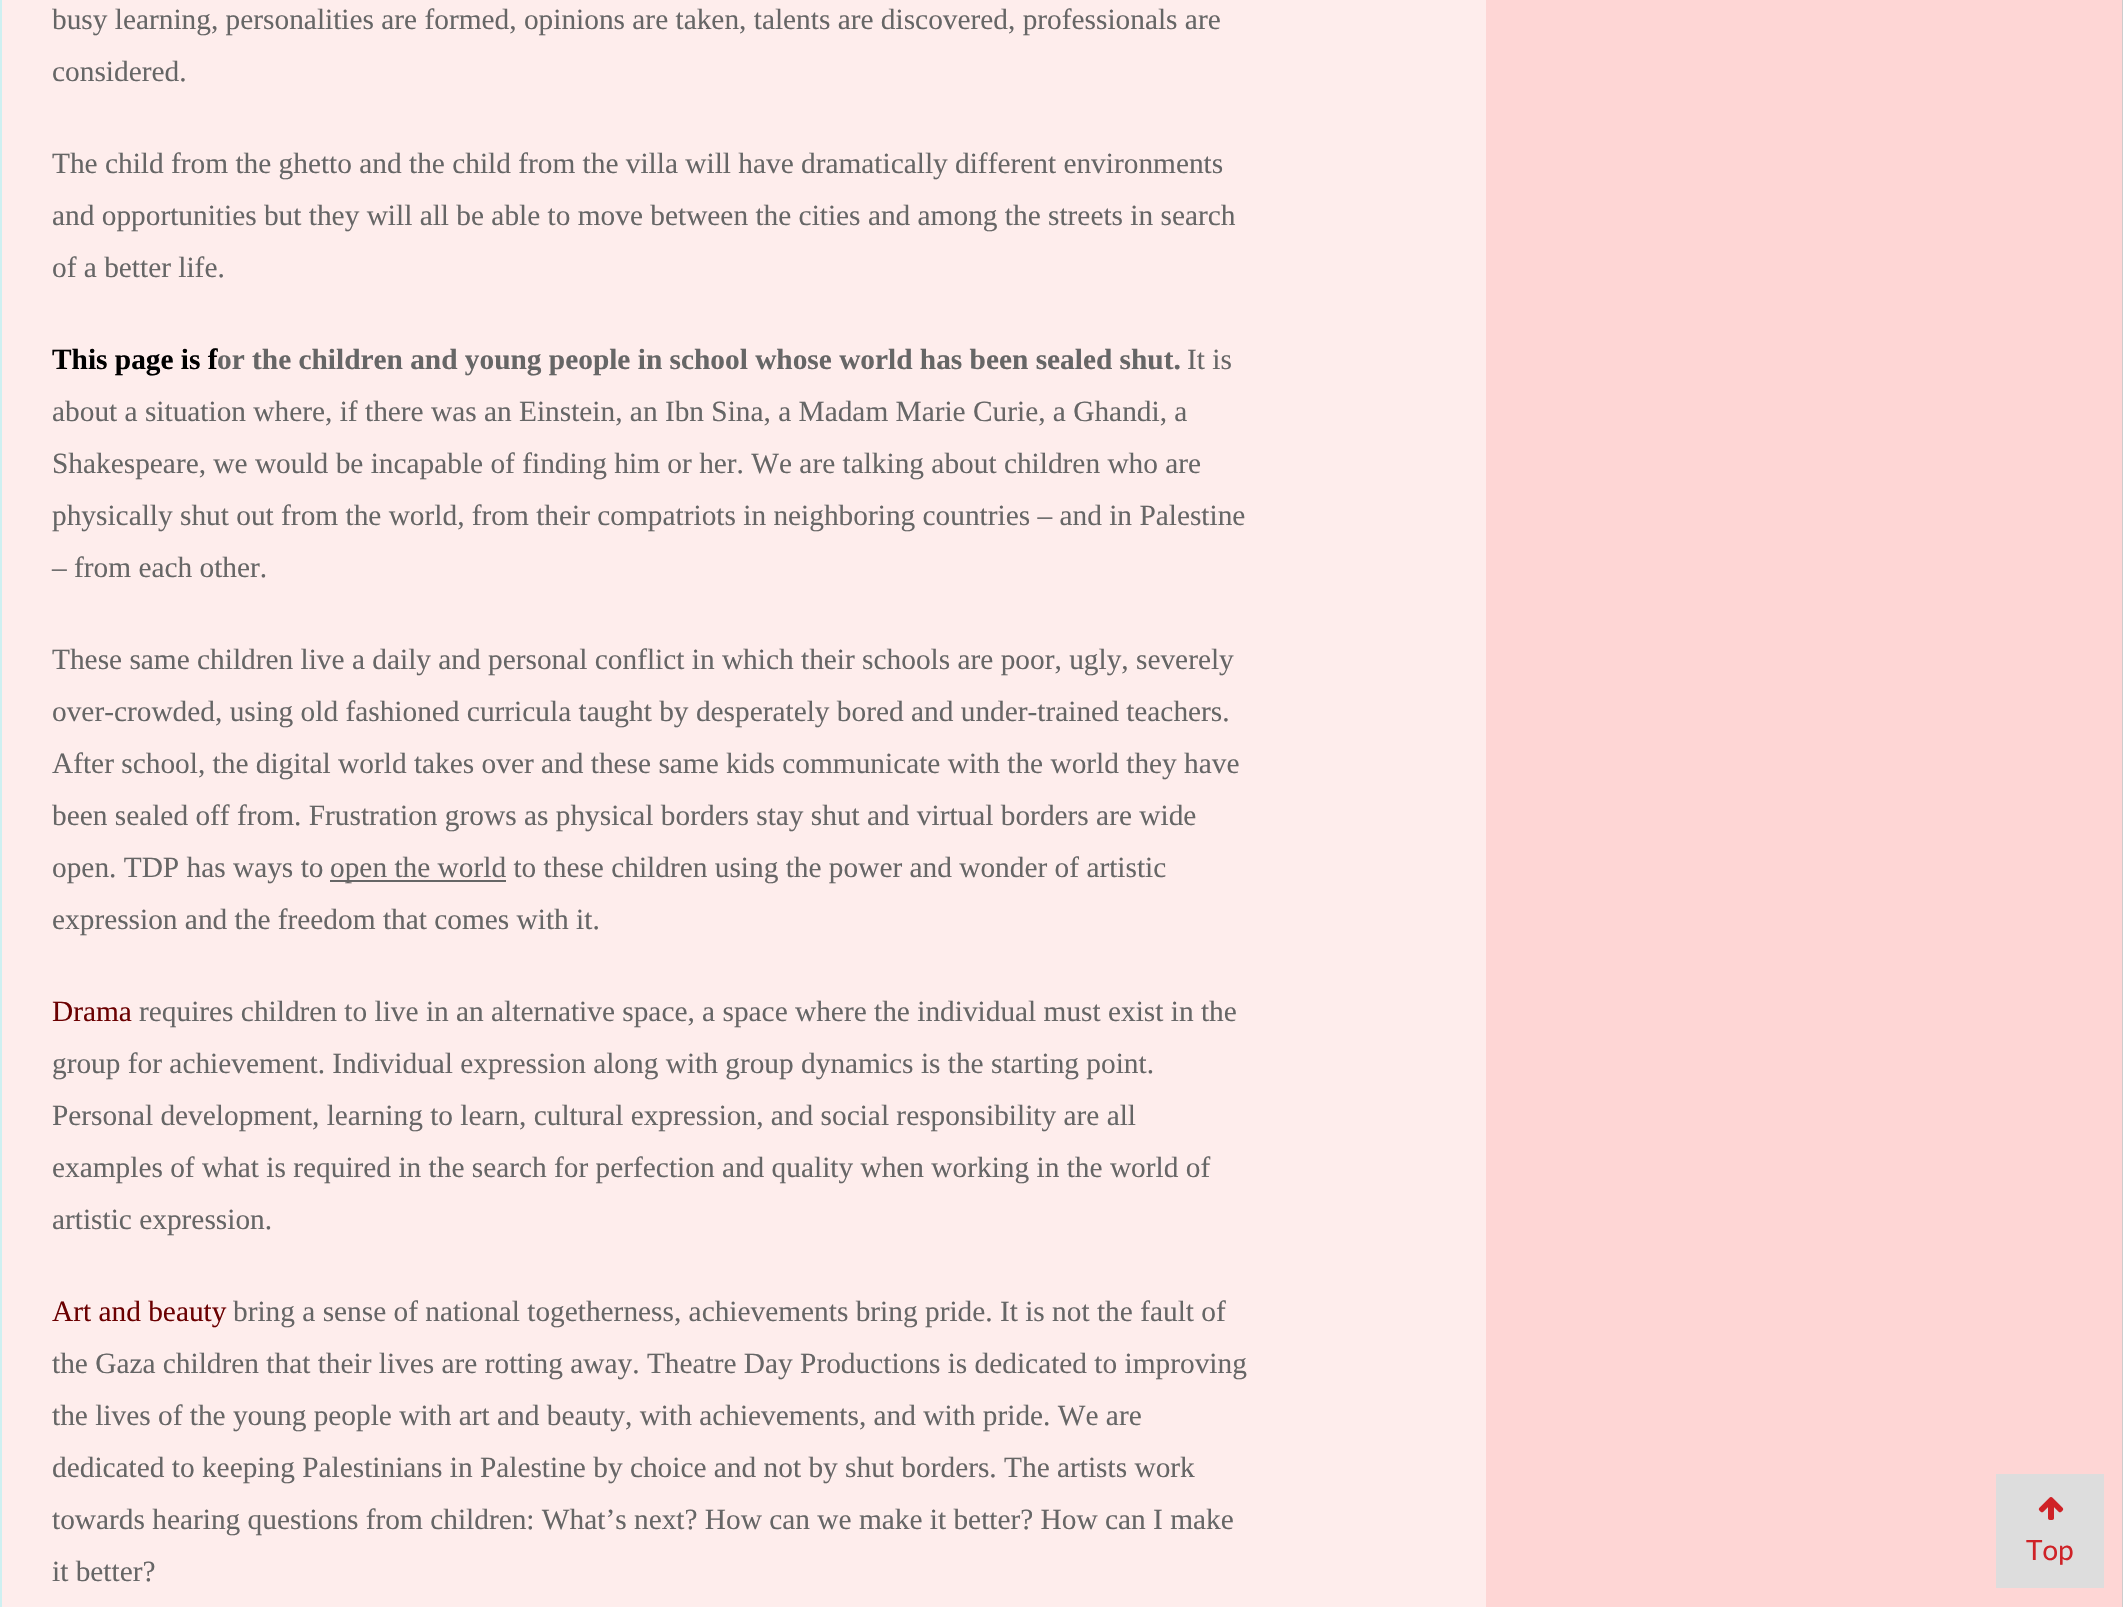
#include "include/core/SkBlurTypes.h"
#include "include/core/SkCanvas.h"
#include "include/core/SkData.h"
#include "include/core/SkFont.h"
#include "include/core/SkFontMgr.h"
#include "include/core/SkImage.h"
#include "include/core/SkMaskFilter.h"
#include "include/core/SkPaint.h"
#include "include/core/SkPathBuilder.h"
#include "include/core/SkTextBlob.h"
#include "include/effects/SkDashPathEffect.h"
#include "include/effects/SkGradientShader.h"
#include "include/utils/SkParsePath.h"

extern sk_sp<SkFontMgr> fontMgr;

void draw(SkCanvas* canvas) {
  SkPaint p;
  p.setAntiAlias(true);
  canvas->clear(SkColorSetRGB(254, 214, 213));
  p.setColor(SkColorSetRGB(204, 204, 204));
  canvas->drawRect(SkRect::MakeLTRB(2122, 0, 2123, 1607), p);
  p.setColor(SkColorSetRGB(206, 240, 241));
  canvas->drawRect(SkRect::MakeLTRB(0, 0, 2, 1607), p);
  p.setColor(SkColorSetRGB(254, 237, 236));
  canvas->drawRect(SkRect::MakeLTRB(2, 0, 1486, 1607), p);
  p.setColor(SkColorSetRGB(102, 102, 102));
  canvas->drawRect(SkRect::MakeLTRB(330, 880, 506, 882), p);
  p.setColor(SkColorSetRGB(221, 221, 221));
  canvas->drawRect(SkRect::MakeLTRB(1996, 1474, 2104, 1588), p);
  canvas->drawImageRect(SkImages::DeferredFromEncodedData(SkData::MakeFromFileName("images/1.png")), SkRect::MakeLTRB(2038, 1497, 2064, 1520), SkSamplingOptions());
  SkFont font1(fontMgr->matchFamilyStyle("Liberation Serif", SkFontStyle::Normal()), 29.35f);
  font1.setSubpixel(true);
  p.setColor(SkColorSetRGB(102, 102, 102));
  canvas->drawString("busy learning, personalities are formed, opinions are taken, talents are discovered, professionals are", 52, 29, font1, p);
  canvas->drawString("considered.", 52, 81, font1, p);
  canvas->drawString("The child from the ghetto and the child from the villa will have dramatically different environments", 52, 173, font1, p);
  canvas->drawString("and opportunities but they will all be able to move between the cities and among the streets in search", 52, 225, font1, p);
  canvas->drawString("of a better life.", 52, 277, font1, p);
  SkFont font2(fontMgr->matchFamilyStyle("Liberation Serif", SkFontStyle::Bold()), 29.35f);
  font2.setSubpixel(true);
  p.setColor(SK_ColorBLACK);
  canvas->drawString("This page is f", 52, 369, font2, p);
  p.setColor(SkColorSetRGB(102, 102, 102));
  canvas->drawString("or the children and young people in school whose world has been sealed shut.", 217, 369, font2, p);
  canvas->drawString("It is", 1187, 369, font1, p);
  canvas->drawString("about a situation where, if there was an Einstein, an Ibn Sina, a Madam Marie Curie, a Ghandi, a", 52, 421, font1, p);
  canvas->drawString("Shakespeare, we would be incapable of finding him or her. We are talking about children who are", 52, 473, font1, p);
  canvas->drawString("physically shut out from the world, from their compatriots in neighboring countries – and in Palestine", 52, 525, font1, p);
  canvas->drawString("– from each other.", 52, 577, font1, p);
  canvas->drawString("These same children live a daily and personal conflict in which their schools are poor, ugly, severely", 52, 669, font1, p);
  canvas->drawString("over-crowded, using old fashioned curricula taught by desperately bored and under-trained teachers.", 52, 721, font1, p);
  canvas->drawString("After school, the digital world takes over and these same kids communicate with the world they have", 52, 773, font1, p);
  canvas->drawString("been sealed off from. Frustration grows as physical borders stay shut and virtual borders are wide", 52, 825, font1, p);
  canvas->drawString("open. TDP has ways to", 52, 877, font1, p);
  canvas->drawString("open the world to these children using the power and wonder of artistic", 330, 877, font1, p);
  canvas->drawString("expression and the freedom that comes with it.", 52, 929, font1, p);
  p.setColor(SkColorSetRGB(107, 0, 1));
  canvas->drawString("Drama", 52, 1021, font1, p);
  p.setColor(SkColorSetRGB(102, 102, 102));
  canvas->drawString("requires children to live in an alternative space, a space where the individual must exist in the", 139, 1021, font1, p);
  canvas->drawString("group for achievement. Individual expression along with group dynamics is the starting point.", 52, 1073, font1, p);
  canvas->drawString("Personal development, learning to learn, cultural expression, and social responsibility are all", 52, 1125, font1, p);
  canvas->drawString("examples of what is required in the search for perfection and quality when working in the world of", 52, 1177, font1, p);
  canvas->drawString("artistic expression.", 52, 1229, font1, p);
  p.setColor(SkColorSetRGB(107, 0, 1));
  canvas->drawString("Art and beauty", 52, 1321, font1, p);
  p.setColor(SkColorSetRGB(102, 102, 102));
  canvas->drawString("bring a sense of national togetherness, achievements bring pride. It is not the fault of", 233, 1321, font1, p);
  canvas->drawString("the Gaza children that their lives are rotting away. Theatre Day Productions is dedicated to improving", 52, 1373, font1, p);
  canvas->drawString("the lives of the young people with art and beauty, with achievements, and with pride. We are", 52, 1425, font1, p);
  canvas->drawString("dedicated to keeping Palestinians in Palestine by choice and not by shut borders. The artists work", 52, 1477, font1, p);
  canvas->drawString("towards hearing questions from children: What’s next? How can we make it better? How can I make", 52, 1529, font1, p);
  canvas->drawString("it better?", 52, 1581, font1, p);
  SkFont font3(fontMgr->matchFamilyStyle("Lato", SkFontStyle::Normal()), 28);
  font3.setSubpixel(true);
  p.setColor(SkColorSetRGB(207, 34, 39));
  canvas->drawString("Top", 2026, 1560, font3, p);
}
